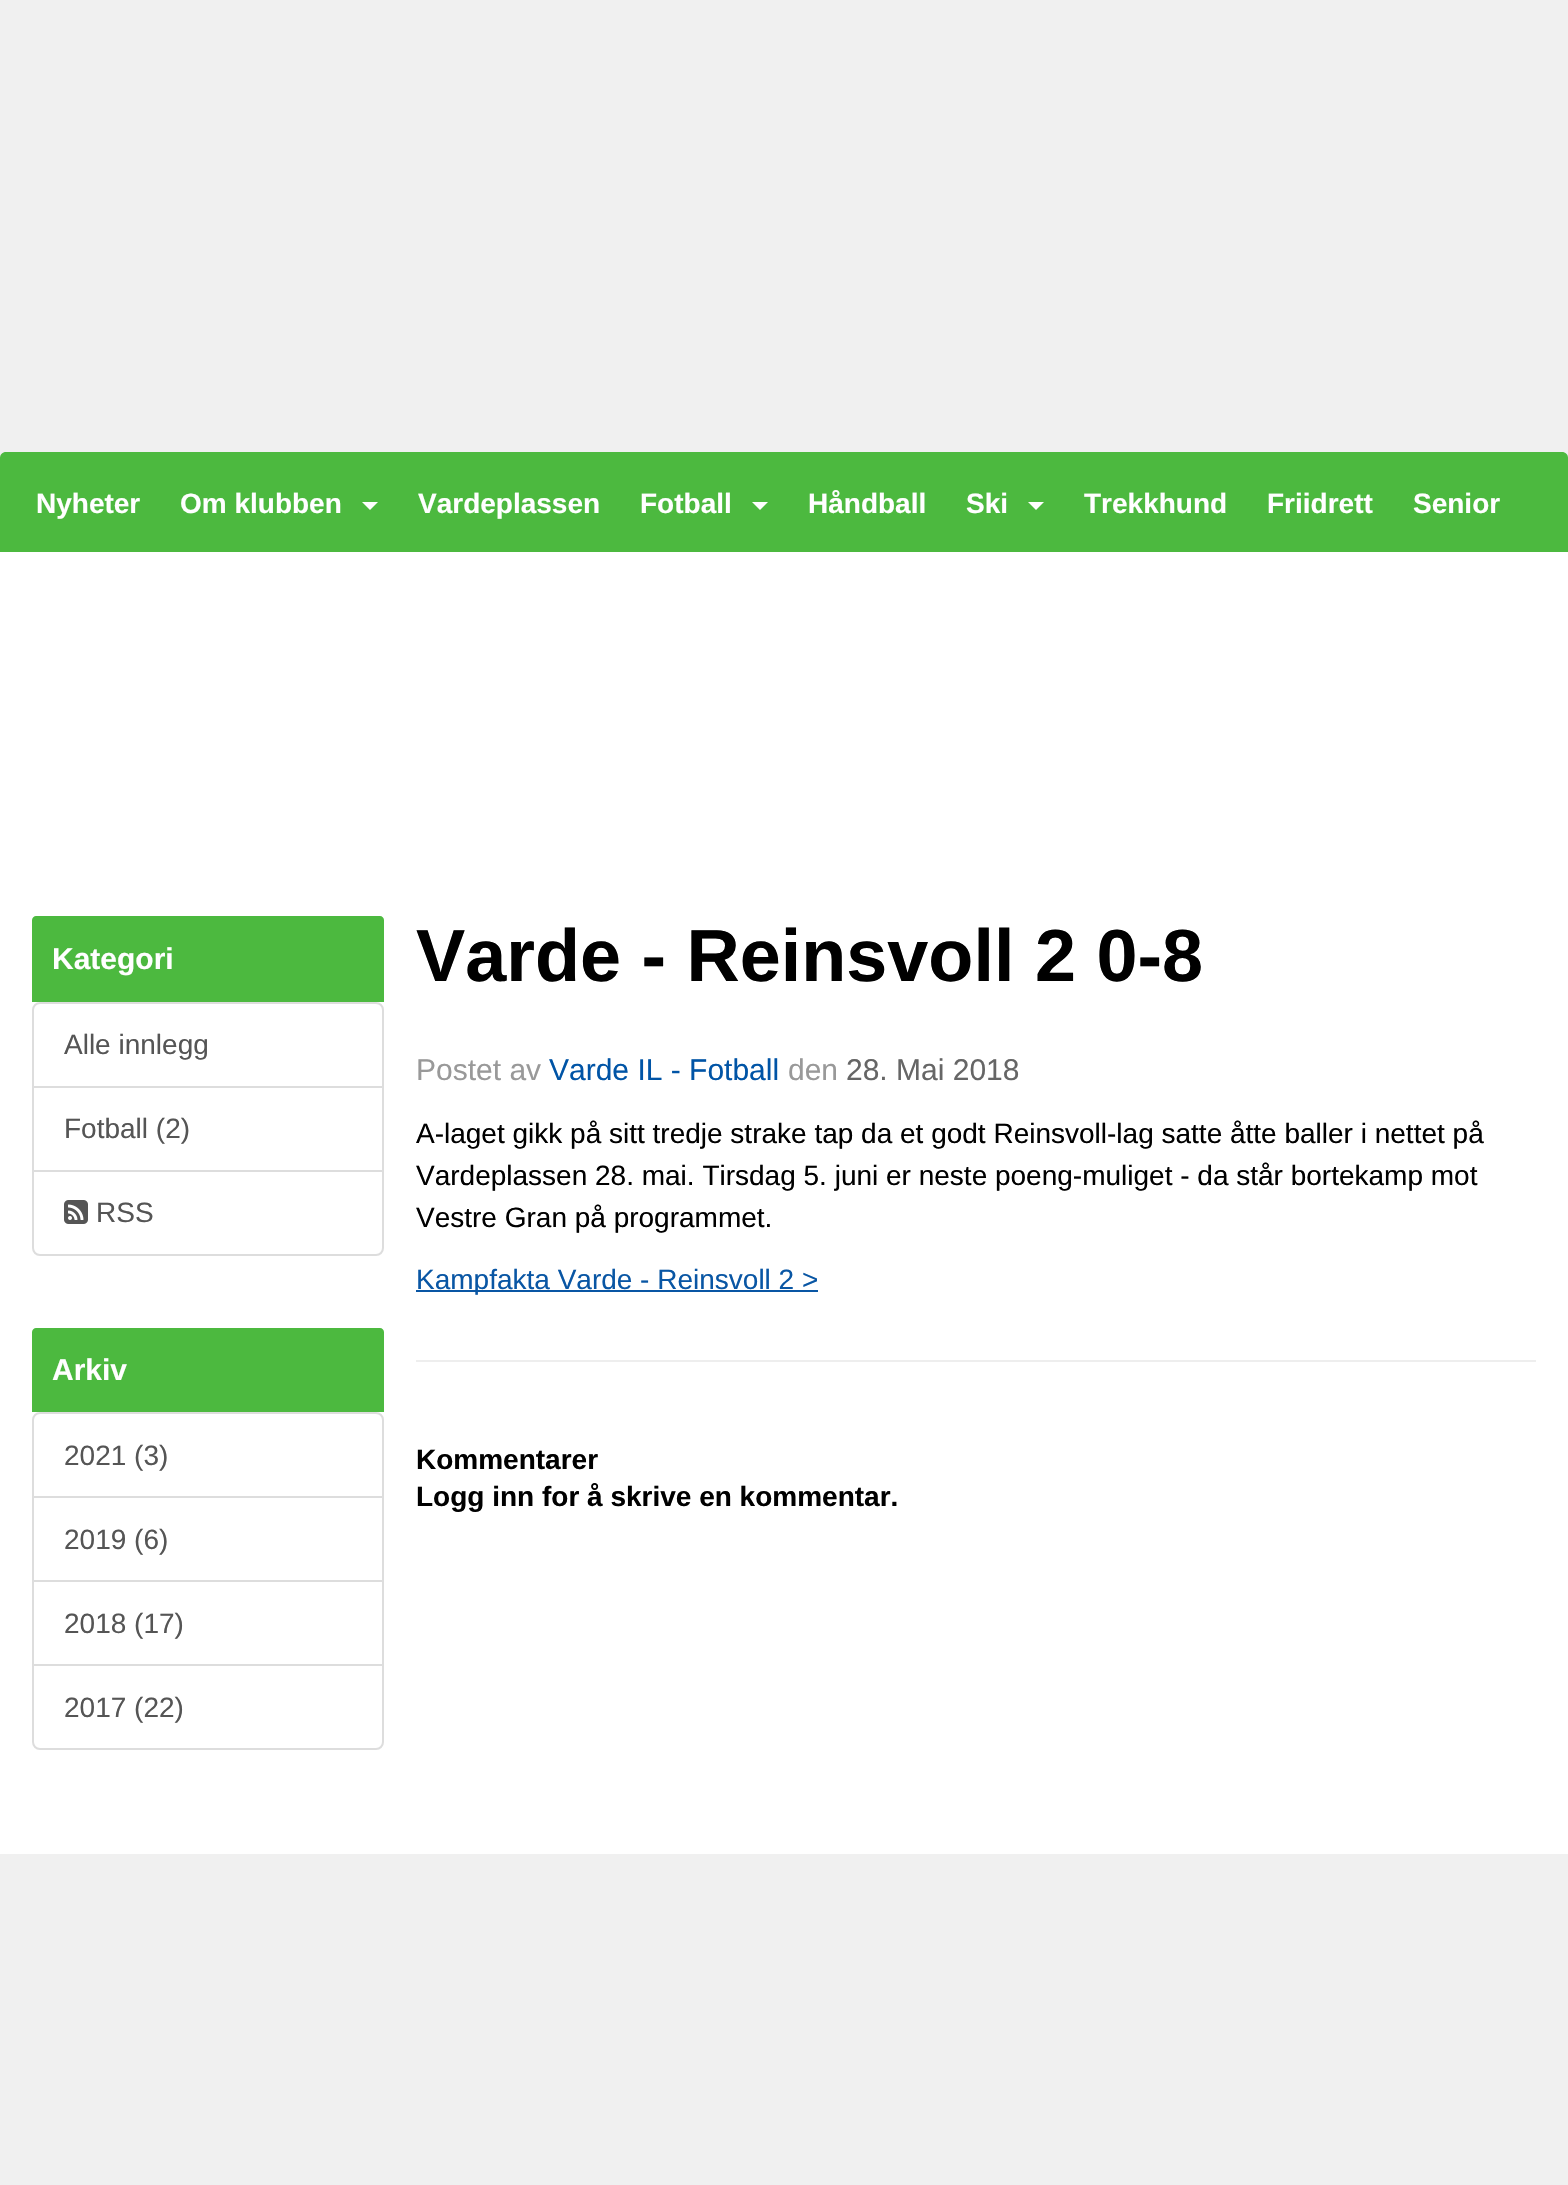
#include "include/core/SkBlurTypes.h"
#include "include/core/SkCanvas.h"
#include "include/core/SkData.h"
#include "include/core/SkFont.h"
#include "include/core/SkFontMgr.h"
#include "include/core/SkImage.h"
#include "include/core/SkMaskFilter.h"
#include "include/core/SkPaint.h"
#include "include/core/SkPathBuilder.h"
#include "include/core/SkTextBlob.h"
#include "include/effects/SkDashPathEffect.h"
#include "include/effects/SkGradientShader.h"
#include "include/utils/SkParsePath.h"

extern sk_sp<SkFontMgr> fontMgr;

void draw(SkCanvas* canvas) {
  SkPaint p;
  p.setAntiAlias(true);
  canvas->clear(SkColorSetRGB(240, 240, 240));
  p.setColor(SkColorSetRGB(76, 185, 63));
  canvas->drawPath(SkPathBuilder().moveTo(6, 452).lineTo(1562, 452).cubicTo(1565.5f, 452, 1568, 454.5f, 1568, 458).lineTo(1568, 552).lineTo(0, 552).lineTo(0, 458).cubicTo(0, 454.5f, 2.5f, 452, 6, 452).close().detach(), p);
  p.setColor(SK_ColorWHITE);
  canvas->drawPath(SkPathBuilder().moveTo(362, 502).lineTo(378, 502).lineTo(370, 510).close().detach(), p);
  canvas->drawPath(SkPathBuilder().moveTo(752, 502).lineTo(768, 502).lineTo(760, 510).close().detach(), p);
  canvas->drawPath(SkPathBuilder().moveTo(1028, 502).lineTo(1044, 502).lineTo(1036, 510).close().detach(), p);
  canvas->drawRect(SkRect::MakeLTRB(0, 552, 1568, 1854), p);
  p.setColor(SkColorSetRGB(76, 185, 63));
  canvas->drawPath(SkPathBuilder().moveTo(36, 916).lineTo(380, 916).cubicTo(382, 916, 384, 918, 384, 920).lineTo(384, 1002).lineTo(32, 1002).lineTo(32, 920).cubicTo(32, 918, 34, 916, 36, 916).close().detach(), p);
  p.setStyle(SkPaint::kStroke_Style);
  p.setStrokeWidth(2);
  p.setColor(SkColorSetRGB(221, 221, 221));
  canvas->drawPath(SkPathBuilder().moveTo(40, 1003).lineTo(376, 1003).cubicTo(380, 1003, 383, 1006, 383, 1010).lineTo(383, 1087).lineTo(33, 1087).lineTo(33, 1010).cubicTo(33, 1006, 36, 1003, 40, 1003).close().detach(), p);
  canvas->drawRect(SkRect::MakeLTRB(33, 1087, 383, 1171), p);
  p.setStyle(SkPaint::kFill_Style);
  p.setColor(SK_ColorWHITE);
  canvas->drawPath(SkPathBuilder().moveTo(33, 1171).lineTo(383, 1171).lineTo(383, 1248).cubicTo(383, 1252, 380, 1255, 376, 1255).lineTo(40, 1255).cubicTo(36, 1255, 33, 1252, 33, 1248).close().detach(), p);
  p.setStyle(SkPaint::kStroke_Style);
  p.setColor(SkColorSetRGB(221, 221, 221));
  canvas->drawPath(SkPathBuilder().moveTo(33, 1171).lineTo(383, 1171).lineTo(383, 1248).cubicTo(383, 1252, 380, 1255, 376, 1255).lineTo(40, 1255).cubicTo(36, 1255, 33, 1252, 33, 1248).close().detach(), p);
  canvas->drawImageRect(SkImages::DeferredFromEncodedData(SkData::MakeFromFileName("images/1.png")), SkRect::MakeLTRB(64, 1200, 88, 1224), SkSamplingOptions());
  p.setStyle(SkPaint::kFill_Style);
  p.setColor(SkColorSetRGB(76, 185, 63));
  canvas->drawPath(SkPathBuilder().moveTo(36, 1328).lineTo(380, 1328).cubicTo(382, 1328, 384, 1330, 384, 1332).lineTo(384, 1412).lineTo(32, 1412).lineTo(32, 1332).cubicTo(32, 1330, 34, 1328, 36, 1328).close().detach(), p);
  p.setStyle(SkPaint::kStroke_Style);
  p.setColor(SkColorSetRGB(221, 221, 221));
  canvas->drawPath(SkPathBuilder().moveTo(40, 1413).lineTo(376, 1413).cubicTo(380, 1413, 383, 1416, 383, 1420).lineTo(383, 1497).lineTo(33, 1497).lineTo(33, 1420).cubicTo(33, 1416, 36, 1413, 40, 1413).close().detach(), p);
  canvas->drawRect(SkRect::MakeLTRB(33, 1497, 383, 1581), p);
  canvas->drawRect(SkRect::MakeLTRB(33, 1581, 383, 1665), p);
  p.setStyle(SkPaint::kFill_Style);
  p.setColor(SK_ColorWHITE);
  canvas->drawPath(SkPathBuilder().moveTo(33, 1665).lineTo(383, 1665).lineTo(383, 1742).cubicTo(383, 1746, 380, 1749, 376, 1749).lineTo(40, 1749).cubicTo(36, 1749, 33, 1746, 33, 1742).close().detach(), p);
  p.setStyle(SkPaint::kStroke_Style);
  p.setColor(SkColorSetRGB(221, 221, 221));
  canvas->drawPath(SkPathBuilder().moveTo(33, 1665).lineTo(383, 1665).lineTo(383, 1742).cubicTo(383, 1746, 380, 1749, 376, 1749).lineTo(40, 1749).cubicTo(36, 1749, 33, 1746, 33, 1742).close().detach(), p);
  p.setStyle(SkPaint::kFill_Style);
  p.setColor(SkColorSetRGB(9, 86, 164));
  canvas->drawRect(SkRect::MakeLTRB(416, 1290, 818, 1292), p);
  p.setColor(SkColorSetRGB(238, 238, 238));
  canvas->drawRect(SkRect::MakeLTRB(416, 1360, 1536, 1362), p);
  SkFont font1(fontMgr->matchFamilyStyle("Liberation Sans", SkFontStyle::Bold()), 28);
  font1.setSubpixel(true);
  p.setColor(SK_ColorWHITE);
  canvas->drawString("Nyheter", 36, 513, font1, p);
  canvas->drawString("Om klubben", 180, 513, font1, p);
  canvas->drawString("Vardeplassen", 418, 513, font1, p);
  canvas->drawString("Fotball", 640, 513, font1, p);
  canvas->drawString("Håndball", 808, 513, font1, p);
  canvas->drawString("Ski", 966, 513, font1, p);
  canvas->drawString("Trekkhund", 1084, 513, font1, p);
  canvas->drawString("Friidrett", 1267, 513, font1, p);
  canvas->drawString("Senior", 1413, 513, font1, p);
  SkFont font2(fontMgr->matchFamilyStyle("Liberation Sans", SkFontStyle::Bold()), 30);
  font2.setSubpixel(true);
  canvas->drawString("Kategori", 52, 969, font2, p);
  SkFont font3(fontMgr->matchFamilyStyle("Liberation Sans", SkFontStyle::Normal()), 28);
  font3.setSubpixel(true);
  p.setColor(SkColorSetRGB(85, 85, 85));
  canvas->drawString("Alle innlegg", 64, 1054, font3, p);
  canvas->drawString("Fotball (2)", 64, 1138, font3, p);
  canvas->drawString("RSS", 96, 1222, font3, p);
  p.setColor(SK_ColorWHITE);
  canvas->drawString("Arkiv", 52, 1380, font2, p);
  p.setColor(SkColorSetRGB(85, 85, 85));
  canvas->drawString("2021 (3)", 64, 1465, font3, p);
  canvas->drawString("2019 (6)", 64, 1549, font3, p);
  canvas->drawString("2018 (17)", 64, 1633, font3, p);
  canvas->drawString("2017 (22)", 64, 1717, font3, p);
  SkFont font4(fontMgr->matchFamilyStyle("Liberation Sans", SkFontStyle::Bold()), 73.75f);
  font4.setSubpixel(true);
  p.setColor(SK_ColorBLACK);
  canvas->drawString("Varde - Reinsvoll 2 0-8", 416, 981, font4, p);
  SkFont font5(fontMgr->matchFamilyStyle("Liberation Sans", SkFontStyle::Normal()), 30);
  font5.setSubpixel(true);
  p.setColor(SkColorSetRGB(153, 153, 153));
  canvas->drawString("Postet av", 416, 1080, font5, p);
  p.setColor(SkColorSetRGB(0, 84, 166));
  canvas->drawString("Varde IL - Fotball", 549, 1080, font5, p);
  p.setColor(SkColorSetRGB(153, 153, 153));
  canvas->drawString("den", 788, 1080, font5, p);
  p.setColor(SkColorSetRGB(102, 102, 102));
  canvas->drawString("28. Mai 2018", 846, 1080, font5, p);
  p.setColor(SK_ColorBLACK);
  canvas->drawString("A-laget gikk på sitt tredje strake tap da et godt Reinsvoll-lag satte åtte baller i nettet på", 416, 1143, font3, p);
  canvas->drawString("Vardeplassen 28. mai. Tirsdag 5. juni er neste poeng-muliget - da står bortekamp mot", 416, 1185, font3, p);
  canvas->drawString("Vestre Gran på programmet.", 416, 1227, font3, p);
  p.setColor(SkColorSetRGB(9, 86, 164));
  canvas->drawString("Kampfakta Varde - Reinsvoll 2 >", 416, 1289, font3, p);
  p.setColor(SK_ColorBLACK);
  canvas->drawString("Kommentarer", 416, 1469, font1, p);
  canvas->drawString("Logg inn for å skrive en kommentar.", 416, 1506, font1, p);
}
